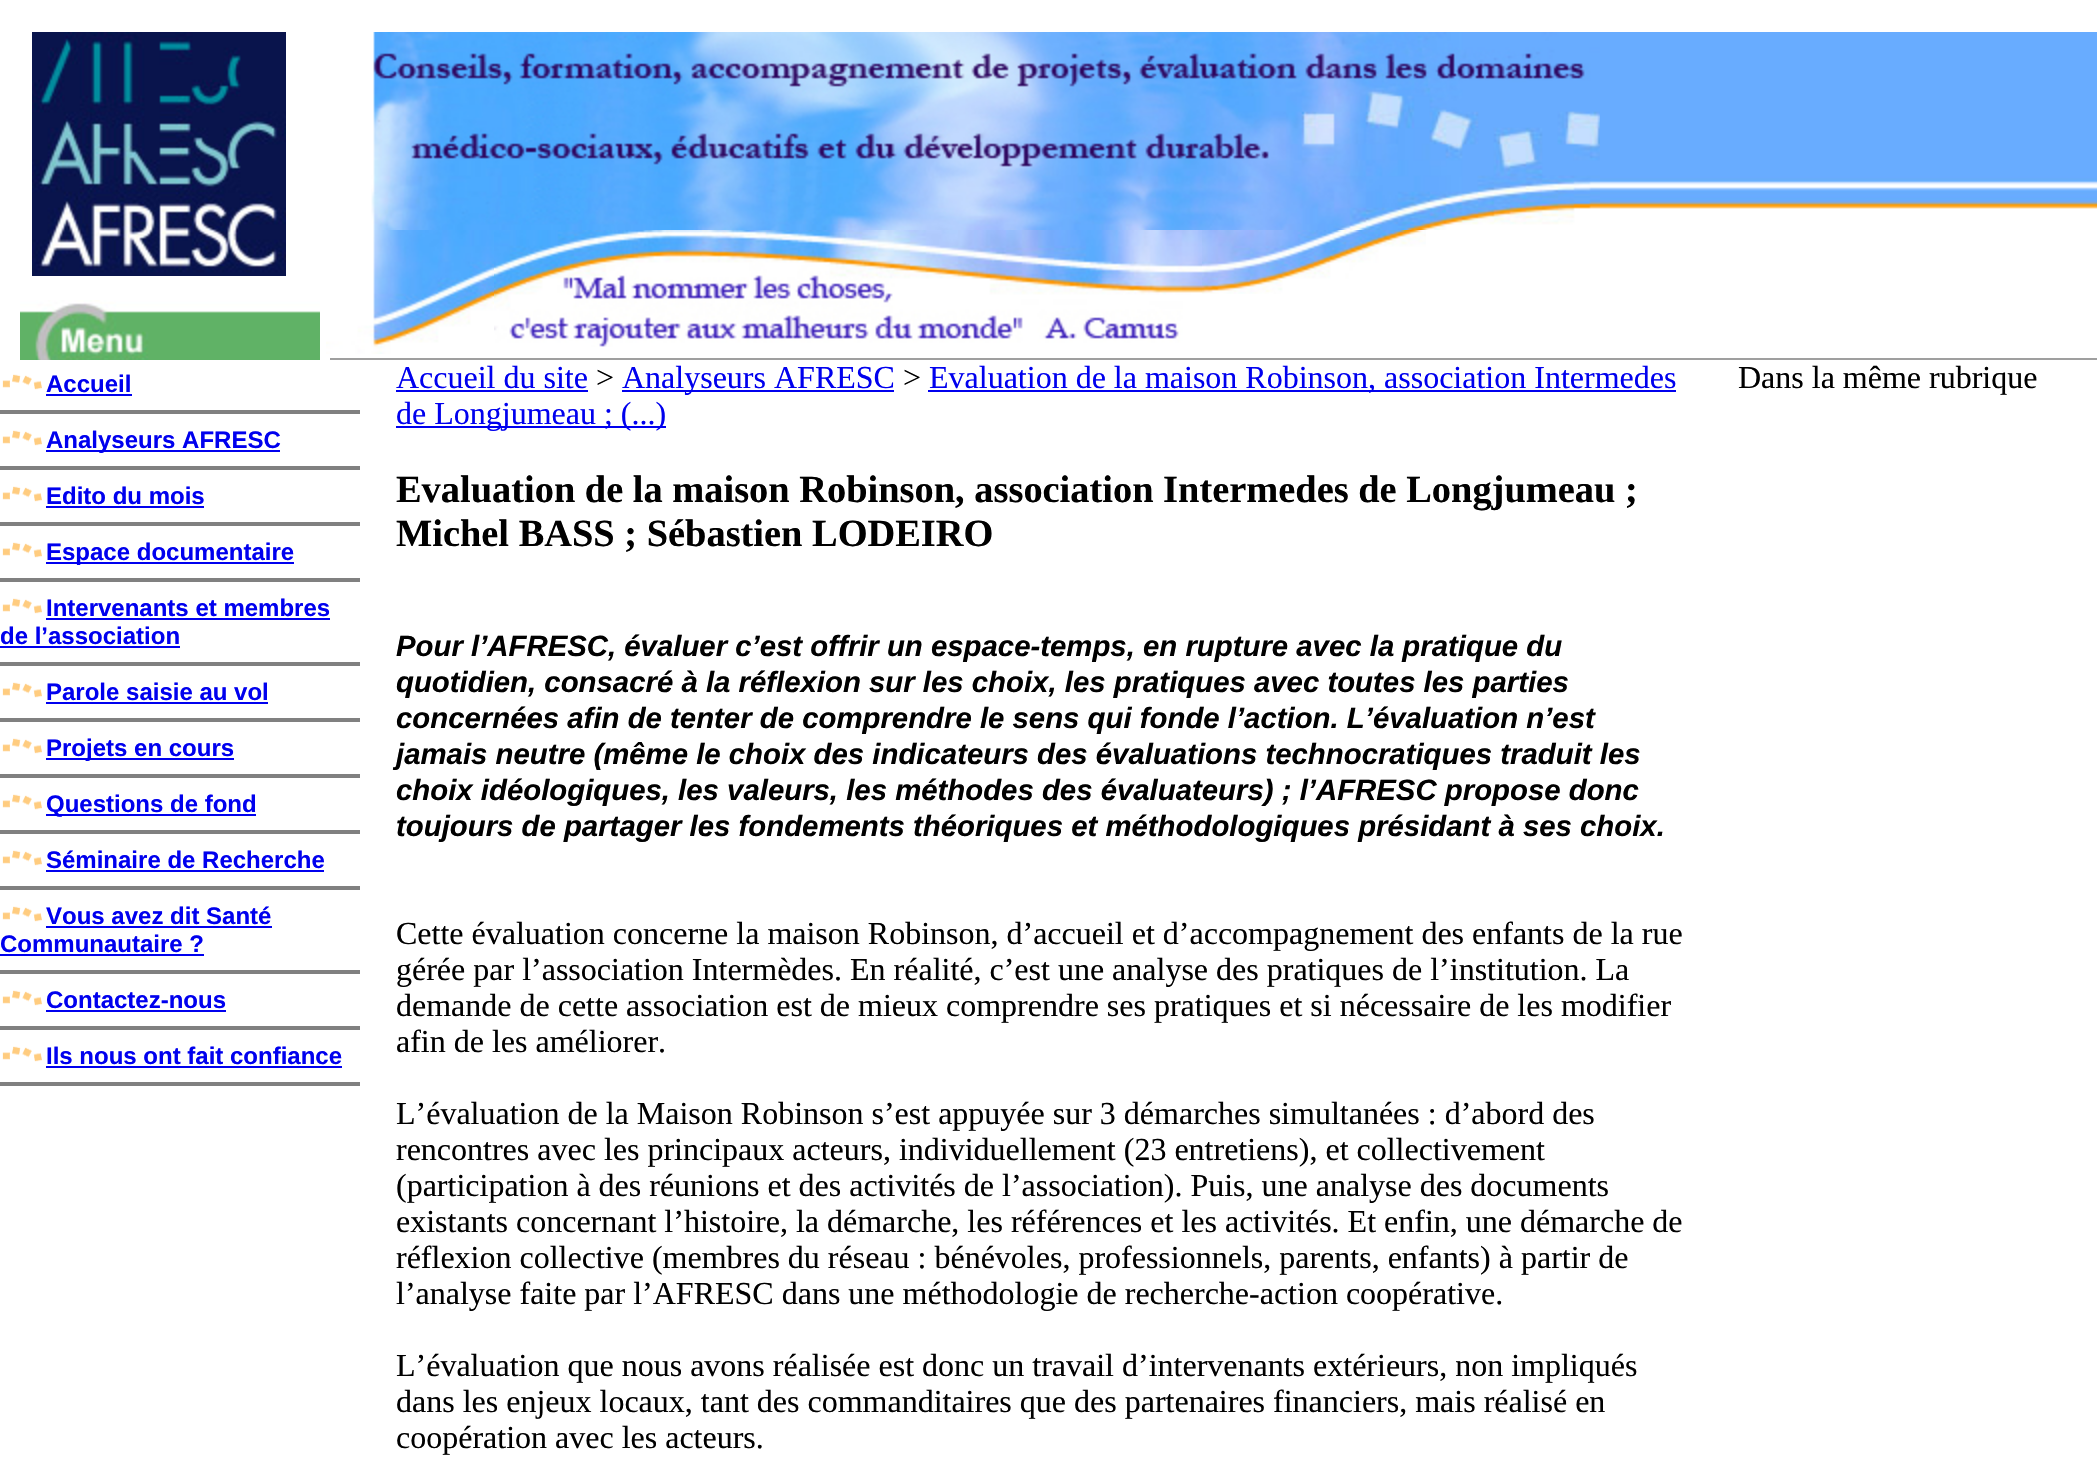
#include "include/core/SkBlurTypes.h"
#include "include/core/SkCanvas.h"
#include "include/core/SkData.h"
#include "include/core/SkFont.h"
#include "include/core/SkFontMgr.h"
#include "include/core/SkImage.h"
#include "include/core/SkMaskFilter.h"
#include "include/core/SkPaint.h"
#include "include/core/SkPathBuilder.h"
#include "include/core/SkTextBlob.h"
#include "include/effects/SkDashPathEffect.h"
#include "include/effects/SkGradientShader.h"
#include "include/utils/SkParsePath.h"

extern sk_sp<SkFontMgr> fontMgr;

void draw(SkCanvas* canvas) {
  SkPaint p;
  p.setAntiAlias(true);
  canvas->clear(SK_ColorWHITE);
  canvas->drawImageRect(SkImages::DeferredFromEncodedData(SkData::MakeFromFileName("images/1.png")), SkRect::MakeLTRB(32, 32, 286, 276), SkSamplingOptions());
  canvas->drawImageRect(SkImages::DeferredFromEncodedData(SkData::MakeFromFileName("images/2.png")), SkRect::MakeLTRB(371, 32, 1606, 230), SkSamplingOptions());
  canvas->drawImageRect(SkImages::DeferredFromEncodedData(SkData::MakeFromFileName("images/3.png")), SkRect::MakeLTRB(1600, 32, 2097, 209), SkSamplingOptions());
  canvas->drawImageRect(SkImages::DeferredFromEncodedData(SkData::MakeFromFileName("images/4.png")), SkRect::MakeLTRB(326, 230, 494, 354), SkSamplingOptions());
  canvas->drawImageRect(SkImages::DeferredFromEncodedData(SkData::MakeFromFileName("images/5.png")), SkRect::MakeLTRB(494, 230, 1202, 347), SkSamplingOptions());
  canvas->drawImageRect(SkImages::DeferredFromEncodedData(SkData::MakeFromFileName("images/6.png")), SkRect::MakeLTRB(1202, 230, 1426, 294), SkSamplingOptions());
  canvas->drawImageRect(SkImages::DeferredFromEncodedData(SkData::MakeFromFileName("images/7.png")), SkRect::MakeLTRB(20, 300, 320, 360), SkSamplingOptions());
  p.setColor(SkColorSetRGB(159, 159, 159));
  canvas->drawRect(SkRect::MakeLTRB(330, 358, 2097, 360), p);
  canvas->drawImageRect(SkImages::DeferredFromEncodedData(SkData::MakeFromFileName("images/8.png")), SkRect::MakeLTRB(2, 374, 42, 390), SkSamplingOptions());
  p.setColor(SkColorSetRGB(0, 0, 238));
  canvas->drawRect(SkRect::MakeLTRB(46, 394, 132, 396), p);
  p.setColor(SkColorSetRGB(128, 128, 128));
  canvas->drawRect(SkRect::MakeLTRB(0, 410, 364, 414), p);
  canvas->drawImageRect(SkImages::DeferredFromEncodedData(SkData::MakeFromFileName("images/8.png")), SkRect::MakeLTRB(2, 430, 42, 446), SkSamplingOptions());
  p.setColor(SkColorSetRGB(0, 0, 238));
  canvas->drawRect(SkRect::MakeLTRB(46, 450, 280, 452), p);
  p.setColor(SkColorSetRGB(128, 128, 128));
  canvas->drawRect(SkRect::MakeLTRB(0, 466, 364, 470), p);
  canvas->drawImageRect(SkImages::DeferredFromEncodedData(SkData::MakeFromFileName("images/8.png")), SkRect::MakeLTRB(2, 486, 42, 502), SkSamplingOptions());
  p.setColor(SkColorSetRGB(0, 0, 238));
  canvas->drawRect(SkRect::MakeLTRB(46, 506, 204, 508), p);
  p.setColor(SkColorSetRGB(128, 128, 128));
  canvas->drawRect(SkRect::MakeLTRB(0, 522, 364, 526), p);
  canvas->drawImageRect(SkImages::DeferredFromEncodedData(SkData::MakeFromFileName("images/8.png")), SkRect::MakeLTRB(2, 542, 42, 558), SkSamplingOptions());
  p.setColor(SkColorSetRGB(0, 0, 238));
  canvas->drawRect(SkRect::MakeLTRB(46, 562, 294, 564), p);
  p.setColor(SkColorSetRGB(128, 128, 128));
  canvas->drawRect(SkRect::MakeLTRB(0, 578, 364, 582), p);
  canvas->drawImageRect(SkImages::DeferredFromEncodedData(SkData::MakeFromFileName("images/8.png")), SkRect::MakeLTRB(2, 598, 42, 614), SkSamplingOptions());
  p.setColor(SkColorSetRGB(0, 0, 238));
  canvas->drawRect(SkRect::MakeLTRB(46, 618, 330, 620), p);
  canvas->drawRect(SkRect::MakeLTRB(0, 646, 180, 648), p);
  p.setColor(SkColorSetRGB(128, 128, 128));
  canvas->drawRect(SkRect::MakeLTRB(0, 662, 364, 666), p);
  canvas->drawImageRect(SkImages::DeferredFromEncodedData(SkData::MakeFromFileName("images/8.png")), SkRect::MakeLTRB(2, 682, 42, 698), SkSamplingOptions());
  p.setColor(SkColorSetRGB(0, 0, 238));
  canvas->drawRect(SkRect::MakeLTRB(46, 702, 268, 704), p);
  p.setColor(SkColorSetRGB(128, 128, 128));
  canvas->drawRect(SkRect::MakeLTRB(0, 718, 364, 722), p);
  canvas->drawImageRect(SkImages::DeferredFromEncodedData(SkData::MakeFromFileName("images/8.png")), SkRect::MakeLTRB(2, 738, 42, 754), SkSamplingOptions());
  p.setColor(SkColorSetRGB(0, 0, 238));
  canvas->drawRect(SkRect::MakeLTRB(46, 758, 234, 760), p);
  p.setColor(SkColorSetRGB(128, 128, 128));
  canvas->drawRect(SkRect::MakeLTRB(0, 774, 364, 778), p);
  canvas->drawImageRect(SkImages::DeferredFromEncodedData(SkData::MakeFromFileName("images/9.png")), SkRect::MakeLTRB(2, 794, 42, 810), SkSamplingOptions());
  p.setColor(SkColorSetRGB(0, 0, 238));
  canvas->drawRect(SkRect::MakeLTRB(46, 814, 256, 816), p);
  p.setColor(SkColorSetRGB(128, 128, 128));
  canvas->drawRect(SkRect::MakeLTRB(0, 830, 364, 834), p);
  canvas->drawImageRect(SkImages::DeferredFromEncodedData(SkData::MakeFromFileName("images/8.png")), SkRect::MakeLTRB(2, 850, 42, 866), SkSamplingOptions());
  p.setColor(SkColorSetRGB(0, 0, 238));
  canvas->drawRect(SkRect::MakeLTRB(46, 870, 324, 872), p);
  p.setColor(SkColorSetRGB(128, 128, 128));
  canvas->drawRect(SkRect::MakeLTRB(0, 886, 364, 890), p);
  canvas->drawImageRect(SkImages::DeferredFromEncodedData(SkData::MakeFromFileName("images/8.png")), SkRect::MakeLTRB(2, 906, 42, 922), SkSamplingOptions());
  p.setColor(SkColorSetRGB(0, 0, 238));
  canvas->drawRect(SkRect::MakeLTRB(46, 926, 272, 928), p);
  canvas->drawRect(SkRect::MakeLTRB(0, 954, 204, 956), p);
  p.setColor(SkColorSetRGB(128, 128, 128));
  canvas->drawRect(SkRect::MakeLTRB(0, 970, 364, 974), p);
  canvas->drawImageRect(SkImages::DeferredFromEncodedData(SkData::MakeFromFileName("images/8.png")), SkRect::MakeLTRB(2, 990, 42, 1006), SkSamplingOptions());
  p.setColor(SkColorSetRGB(0, 0, 238));
  canvas->drawRect(SkRect::MakeLTRB(46, 1010, 226, 1012), p);
  p.setColor(SkColorSetRGB(128, 128, 128));
  canvas->drawRect(SkRect::MakeLTRB(0, 1026, 364, 1030), p);
  canvas->drawImageRect(SkImages::DeferredFromEncodedData(SkData::MakeFromFileName("images/8.png")), SkRect::MakeLTRB(2, 1046, 42, 1062), SkSamplingOptions());
  p.setColor(SkColorSetRGB(0, 0, 238));
  canvas->drawRect(SkRect::MakeLTRB(46, 1066, 342, 1068), p);
  p.setColor(SkColorSetRGB(128, 128, 128));
  canvas->drawRect(SkRect::MakeLTRB(0, 1082, 364, 1086), p);
  p.setColor(SK_ColorWHITE);
  canvas->drawRect(SkRect::MakeLTRB(360, 410, 364, 1086), p);
  p.setColor(SkColorSetRGB(0, 0, 238));
  canvas->drawRect(SkRect::MakeLTRB(396, 390, 588, 392), p);
  canvas->drawRect(SkRect::MakeLTRB(622, 390, 894, 392), p);
  canvas->drawRect(SkRect::MakeLTRB(928, 390, 1676, 392), p);
  canvas->drawRect(SkRect::MakeLTRB(396, 426, 666, 428), p);
  SkFont font1(fontMgr->matchFamilyStyle("Liberation Sans", SkFontStyle::Bold()), 24);
  font1.setSubpixel(true);
  canvas->drawString("Accueil", 46, 392, font1, p);
  canvas->drawString("Analyseurs AFRESC", 46, 448, font1, p);
  canvas->drawString("Edito du mois", 46, 504, font1, p);
  canvas->drawString("Espace documentaire", 46, 560, font1, p);
  canvas->drawString("Intervenants et membres", 46, 616, font1, p);
  canvas->drawString("de l’association", 0, 644, font1, p);
  canvas->drawString("Parole saisie au vol", 46, 700, font1, p);
  canvas->drawString("Projets en cours", 46, 756, font1, p);
  canvas->drawString("Questions de fond", 46, 812, font1, p);
  canvas->drawString("Séminaire de Recherche", 46, 868, font1, p);
  canvas->drawString("Vous avez dit Santé", 46, 924, font1, p);
  canvas->drawString("Communautaire ?", 0, 952, font1, p);
  canvas->drawString("Contactez-nous", 46, 1008, font1, p);
  canvas->drawString("Ils nous ont fait confiance", 46, 1064, font1, p);
  SkFont font2(fontMgr->matchFamilyStyle("Liberation Serif", SkFontStyle::Normal()), 32);
  font2.setSubpixel(true);
  canvas->drawString("Accueil du site", 396, 388, font2, p);
  p.setColor(SK_ColorBLACK);
  canvas->drawString(">", 596, 388, font2, p);
  p.setColor(SkColorSetRGB(0, 0, 238));
  canvas->drawString("Analyseurs AFRESC", 622, 388, font2, p);
  p.setColor(SK_ColorBLACK);
  canvas->drawString(">", 903, 388, font2, p);
  p.setColor(SkColorSetRGB(0, 0, 238));
  canvas->drawString("Evaluation de la maison Robinson, association Intermedes", 929, 388, font2, p);
  canvas->drawString("de Longjumeau ; (...)", 396, 424, font2, p);
  SkFont font3(fontMgr->matchFamilyStyle("Liberation Serif", SkFontStyle::Bold()), 38.4f);
  font3.setSubpixel(true);
  p.setColor(SK_ColorBLACK);
  canvas->drawString("Evaluation de la maison Robinson, association Intermedes de Longjumeau ;", 396, 502, font3, p);
  canvas->drawString("Michel BASS ; Sébastien LODEIRO", 396, 546, font3, p);
  SkFont font4(fontMgr->matchFamilyStyle("Liberation Sans", SkFontStyle::BoldItalic()), 29.35f);
  font4.setSubpixel(true);
  canvas->drawString("Pour l’AFRESC, évaluer c’est offrir un espace-temps, en rupture avec la pratique du", 396, 656, font4, p);
  canvas->drawString("quotidien, consacré à la réflexion sur les choix, les pratiques avec toutes les parties", 396, 692, font4, p);
  canvas->drawString("concernées afin de tenter de comprendre le sens qui fonde l’action. L’évaluation n’est", 396, 728, font4, p);
  canvas->drawString("jamais neutre (même le choix des indicateurs des évaluations technocratiques traduit les", 396, 764, font4, p);
  canvas->drawString("choix idéologiques, les valeurs, les méthodes des évaluateurs) ; l’AFRESC propose donc", 396, 800, font4, p);
  canvas->drawString("toujours de partager les fondements théoriques et méthodologiques présidant à ses choix.", 396, 836, font4, p);
  canvas->drawString("Cette évaluation concerne la maison Robinson, d’accueil et d’accompagnement des enfants de la rue", 396, 944, font2, p);
  canvas->drawString("gérée par l’association Intermèdes. En réalité, c’est une analyse des pratiques de l’institution. La", 396, 980, font2, p);
  canvas->drawString("demande de cette association est de mieux comprendre ses pratiques et si nécessaire de les modifier", 396, 1016, font2, p);
  canvas->drawString("afin de les améliorer.", 396, 1052, font2, p);
  canvas->drawString("L’évaluation de la Maison Robinson s’est appuyée sur 3 démarches simultanées : d’abord des", 396, 1124, font2, p);
  canvas->drawString("rencontres avec les principaux acteurs, individuellement (23 entretiens), et collectivement", 396, 1160, font2, p);
  canvas->drawString("(participation à des réunions et des activités de l’association). Puis, une analyse des documents", 396, 1196, font2, p);
  canvas->drawString("existants concernant l’histoire, la démarche, les références et les activités. Et enfin, une démarche de", 396, 1232, font2, p);
  canvas->drawString("réflexion collective (membres du réseau : bénévoles, professionnels, parents, enfants) à partir de", 396, 1268, font2, p);
  canvas->drawString("l’analyse faite par l’AFRESC dans une méthodologie de recherche-action coopérative.", 396, 1304, font2, p);
  canvas->drawString("L’évaluation que nous avons réalisée est donc un travail d’intervenants extérieurs, non impliqués", 396, 1376, font2, p);
  canvas->drawString("dans les enjeux locaux, tant des commanditaires que des partenaires financiers, mais réalisé en", 396, 1412, font2, p);
  canvas->drawString("coopération avec les acteurs.", 396, 1448, font2, p);
  canvas->drawString("Dans la même rubrique", 1738, 388, font2, p);
}
